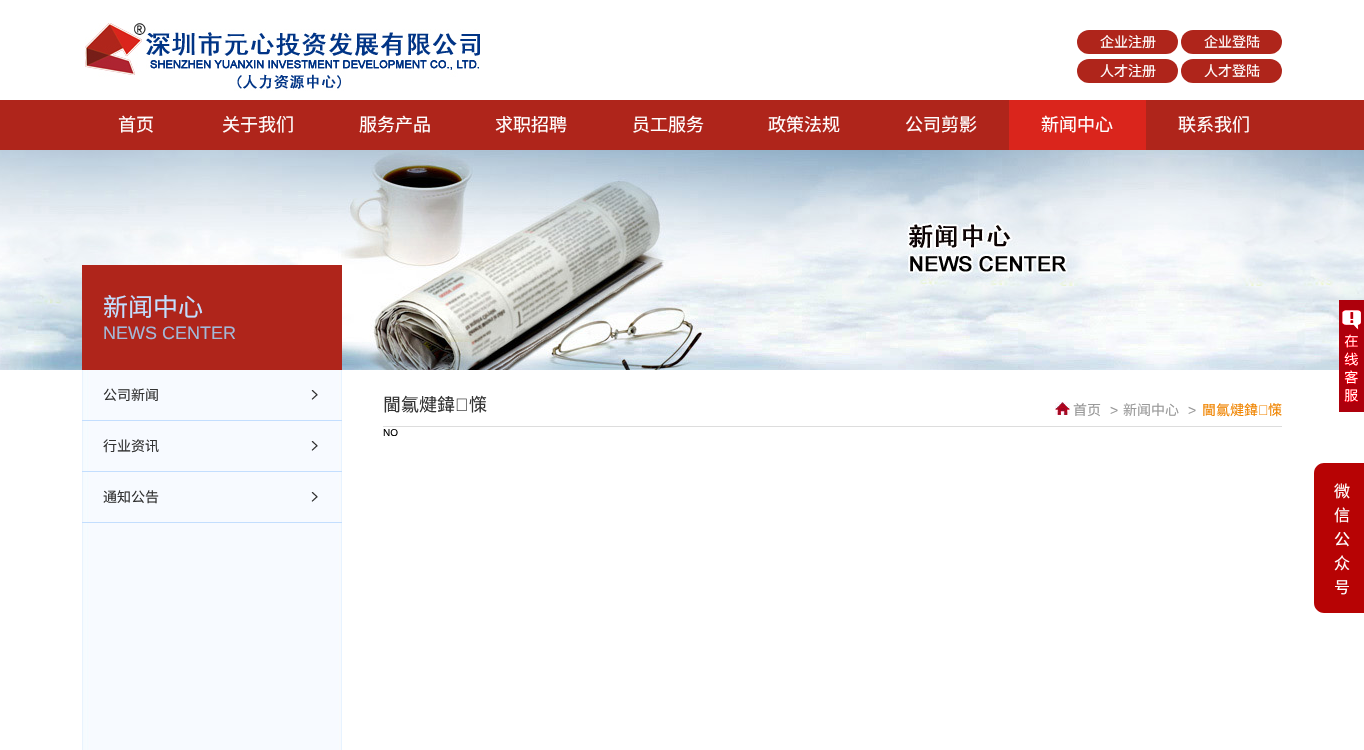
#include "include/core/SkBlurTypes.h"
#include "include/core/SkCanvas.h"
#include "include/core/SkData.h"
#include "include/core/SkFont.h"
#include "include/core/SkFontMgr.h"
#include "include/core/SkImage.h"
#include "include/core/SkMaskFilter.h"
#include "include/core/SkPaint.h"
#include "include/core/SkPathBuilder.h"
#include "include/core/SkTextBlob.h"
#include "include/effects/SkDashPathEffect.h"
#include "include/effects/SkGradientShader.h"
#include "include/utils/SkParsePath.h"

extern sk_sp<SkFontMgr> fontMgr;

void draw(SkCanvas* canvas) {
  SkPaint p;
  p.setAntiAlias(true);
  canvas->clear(SK_ColorWHITE);
  canvas->drawImageRect(SkImages::DeferredFromEncodedData(SkData::MakeFromFileName("images/1.png")), SkRect::MakeLTRB(85, 23, 480, 91), SkSamplingOptions());
  p.setColor(SkColorSetRGB(175, 37, 27));
  canvas->drawRoundRect(SkRect::MakeLTRB(1077, 30, 1178, 54), 12, 12, p);
  canvas->drawRoundRect(SkRect::MakeLTRB(1181, 30, 1282, 54), 12, 12, p);
  canvas->drawRoundRect(SkRect::MakeLTRB(1077, 59, 1178, 83), 12, 12, p);
  canvas->drawRoundRect(SkRect::MakeLTRB(1181, 59, 1282, 83), 12, 12, p);
  canvas->drawRect(SkRect::MakeLTRB(0, 100, 1364, 150), p);
  p.setColor(SkColorSetRGB(218, 37, 28));
  canvas->drawRect(SkRect::MakeLTRB(1009, 100, 1146, 150), p);
  canvas->drawImageRect(SkImages::DeferredFromEncodedData(SkData::MakeFromFileName("images/2.png")), SkRect::MakeLTRB(0, 150, 1364, 370), SkSamplingOptions());
  canvas->drawImageRect(SkImages::DeferredFromEncodedData(SkData::MakeFromFileName("images/3.png")), SkRect::MakeLTRB(82, 370, 342, 750), SkSamplingOptions());
  p.setColor(SkColorSetRGB(175, 37, 27));
  canvas->drawRect(SkRect::MakeLTRB(82, 265, 342, 370), p);
  canvas->drawImageRect(SkImages::DeferredFromEncodedData(SkData::MakeFromFileName("images/4.png")), SkRect::MakeLTRB(311, 390, 318, 400), SkSamplingOptions());
  p.setColor(SkColorSetRGB(195, 222, 254));
  canvas->drawRect(SkRect::MakeLTRB(82, 420, 342, 421), p);
  canvas->drawImageRect(SkImages::DeferredFromEncodedData(SkData::MakeFromFileName("images/4.png")), SkRect::MakeLTRB(311, 441, 318, 451), SkSamplingOptions());
  canvas->drawRect(SkRect::MakeLTRB(82, 471, 342, 472), p);
  canvas->drawImageRect(SkImages::DeferredFromEncodedData(SkData::MakeFromFileName("images/4.png")), SkRect::MakeLTRB(311, 492, 318, 502), SkSamplingOptions());
  canvas->drawRect(SkRect::MakeLTRB(82, 522, 342, 523), p);
  p.setColor(SkColorSetRGB(221, 221, 221));
  canvas->drawRect(SkRect::MakeLTRB(383, 426, 1282, 427), p);
  canvas->drawImageRect(SkImages::DeferredFromEncodedData(SkData::MakeFromFileName("images/5.png")), SkRect::MakeLTRB(456, 398, 467, 411), SkSamplingOptions());
  canvas->drawImageRect(SkImages::DeferredFromEncodedData(SkData::MakeFromFileName("images/6.png")), SkRect::MakeLTRB(1055, 402, 1070, 415), SkSamplingOptions());
  canvas->drawImageRect(SkImages::DeferredFromEncodedData(SkData::MakeFromFileName("images/7.png")), SkRect::MakeLTRB(1259, 405, 1268, 415), SkSamplingOptions());
  canvas->drawImageRect(SkImages::DeferredFromEncodedData(SkData::MakeFromFileName("images/8.png")), SkRect::MakeLTRB(1339, 300, 1364, 412), SkSamplingOptions());
  p.setColor(SkColorSetRGB(183, 3, 4));
  canvas->drawPath(SkPathBuilder().moveTo(1324, 463).lineTo(1364, 463).lineTo(1364, 613).lineTo(1324, 613).cubicTo(1318.5f, 613, 1314, 608.5f, 1314, 603).lineTo(1314, 473).cubicTo(1314, 467.5f, 1318.5f, 463, 1324, 463).close().detach(), p);
  SkFont font1(fontMgr->matchFamilyStyle("Noto Sans CJK SC", SkFontStyle::Normal()), 14);
  font1.setSubpixel(true);
  p.setColor(SK_ColorWHITE);
  canvas->drawString("企业注册", 1100, 47, font1, p);
  canvas->drawString("企业登陆", 1204, 47, font1, p);
  canvas->drawString("人才注册", 1100, 76, font1, p);
  canvas->drawString("人才登陆", 1204, 76, font1, p);
  SkFont font2(fontMgr->matchFamilyStyle("Noto Sans CJK SC", SkFontStyle::Normal()), 18);
  font2.setSubpixel(true);
  canvas->drawString("首页", 118, 131, font2, p);
  canvas->drawString("关于我们", 222, 131, font2, p);
  canvas->drawString("服务产品", 359, 131, font2, p);
  canvas->drawString("求职招聘", 495, 131, font2, p);
  canvas->drawString("员工服务", 632, 131, font2, p);
  canvas->drawString("政策法规", 768, 131, font2, p);
  canvas->drawString("公司剪影", 905, 131, font2, p);
  canvas->drawString("新闻中心", 1041, 131, font2, p);
  canvas->drawString("联系我们", 1178, 131, font2, p);
  SkFont font3(fontMgr->matchFamilyStyle("Noto Sans CJK SC", SkFontStyle::Normal()), 25);
  font3.setSubpixel(true);
  p.setColor(SkColorSetRGB(195, 222, 254));
  canvas->drawString("新闻中心", 103, 316, font3, p);
  SkFont font4(fontMgr->matchFamilyStyle("Liberation Sans", SkFontStyle::Normal()), 18);
  font4.setSubpixel(true);
  p.setColor(SkColorSetRGB(163, 185, 216));
  canvas->drawString("NEWS CENTER", 103, 339, font4, p);
  p.setColor(SkColorSetRGB(51, 51, 51));
  canvas->drawString("公司新闻", 103, 400, font1, p);
  canvas->drawString("行业资讯", 103, 451, font1, p);
  canvas->drawString("通知公告", 103, 502, font1, p);
  canvas->drawString("閫氱煡鍏", 383, 411, font2, p);
  canvas->drawString("憡", 469, 411, font2, p);
  p.setColor(SkColorSetRGB(153, 153, 153));
  canvas->drawString("首页", 1073, 415, font1, p);
  SkFont font5(fontMgr->matchFamilyStyle("Liberation Sans", SkFontStyle::Normal()), 14);
  font5.setSubpixel(true);
  canvas->drawString(">", 1110, 415, font5, p);
  canvas->drawString("新闻中心", 1123, 415, font1, p);
  canvas->drawString(">", 1188, 415, font5, p);
  p.setColor(SkColorSetRGB(240, 132, 0));
  canvas->drawString("閫氱煡鍏", 1202, 415, font1, p);
  canvas->drawString("憡", 1268, 415, font1, p);
  SkFont font6(fontMgr->matchFamilyStyle("Liberation Sans", SkFontStyle::Normal()), 10);
  font6.setSubpixel(true);
  p.setColor(SK_ColorBLACK);
  canvas->drawString("NO", 383, 436, font6, p);
  SkFont font7(fontMgr->matchFamilyStyle("Noto Sans CJK SC", SkFontStyle::Normal()), 16);
  font7.setSubpixel(true);
  p.setColor(SK_ColorWHITE);
  canvas->drawString("微", 1334, 497, font7, p);
  canvas->drawString("信", 1334, 521, font7, p);
  canvas->drawString("公", 1334, 545, font7, p);
  canvas->drawString("众", 1334, 569, font7, p);
  canvas->drawString("号", 1334, 593, font7, p);
}
